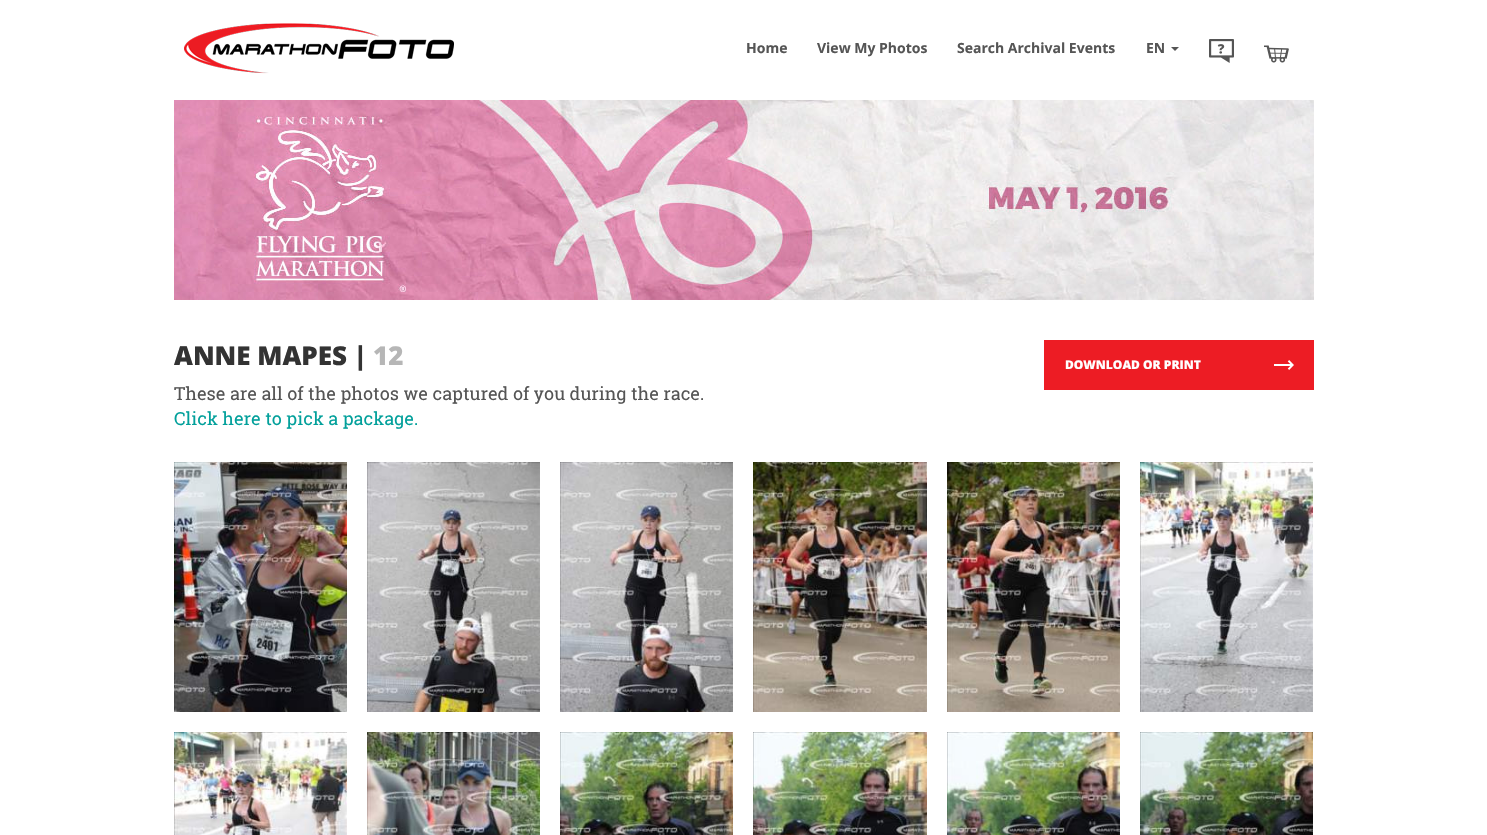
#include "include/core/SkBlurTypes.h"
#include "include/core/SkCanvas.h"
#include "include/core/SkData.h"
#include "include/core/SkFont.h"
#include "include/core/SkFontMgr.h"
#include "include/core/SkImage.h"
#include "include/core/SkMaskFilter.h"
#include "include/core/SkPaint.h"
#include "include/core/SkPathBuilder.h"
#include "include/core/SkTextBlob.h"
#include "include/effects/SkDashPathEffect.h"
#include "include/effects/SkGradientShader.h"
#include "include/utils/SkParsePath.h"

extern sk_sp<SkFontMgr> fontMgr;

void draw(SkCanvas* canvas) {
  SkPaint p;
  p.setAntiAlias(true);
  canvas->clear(SK_ColorWHITE);
  canvas->drawImageRect(SkImages::DeferredFromEncodedData(SkData::MakeFromFileName("images/1.png")), SkRect::MakeLTRB(184, 23, 454, 74), SkSamplingOptions());
  p.setColor(SkColorSetRGB(85, 85, 85));
  canvas->drawPath(SkPathBuilder().moveTo(1171, 47).lineTo(1179, 47).lineTo(1175, 51).close().detach(), p);
  canvas->drawImageRect(SkImages::DeferredFromEncodedData(SkData::MakeFromFileName("images/2.png")), SkRect::MakeLTRB(1209, 39, 1234, 63), SkSamplingOptions());
  canvas->drawImageRect(SkImages::DeferredFromEncodedData(SkData::MakeFromFileName("images/3.png")), SkRect::MakeLTRB(1264, 45, 1289, 63), SkSamplingOptions());
  canvas->drawImageRect(SkImages::DeferredFromEncodedData(SkData::MakeFromFileName("images/4.png")), SkRect::MakeLTRB(174, 100, 1314, 300), SkSamplingOptions());
  p.setColor(SkColorSetRGB(237, 28, 36));
  canvas->drawRect(SkRect::MakeLTRB(1044, 340, 1314, 390), p);
  canvas->drawImageRect(SkImages::DeferredFromEncodedData(SkData::MakeFromFileName("images/5.png")), SkRect::MakeLTRB(1274, 360, 1294, 370), SkSamplingOptions());
  canvas->drawImageRect(SkImages::DeferredFromEncodedData(SkData::MakeFromFileName("images/6.png")), SkRect::MakeLTRB(174, 462, 347, 712), SkSamplingOptions());
  canvas->drawImageRect(SkImages::DeferredFromEncodedData(SkData::MakeFromFileName("images/7.png")), SkRect::MakeLTRB(367, 462, 540, 712), SkSamplingOptions());
  canvas->drawImageRect(SkImages::DeferredFromEncodedData(SkData::MakeFromFileName("images/8.png")), SkRect::MakeLTRB(560, 462, 733, 712), SkSamplingOptions());
  canvas->drawImageRect(SkImages::DeferredFromEncodedData(SkData::MakeFromFileName("images/9.png")), SkRect::MakeLTRB(753, 462, 927, 712), SkSamplingOptions());
  canvas->drawImageRect(SkImages::DeferredFromEncodedData(SkData::MakeFromFileName("images/10.png")), SkRect::MakeLTRB(947, 462, 1120, 712), SkSamplingOptions());
  canvas->drawImageRect(SkImages::DeferredFromEncodedData(SkData::MakeFromFileName("images/11.png")), SkRect::MakeLTRB(1140, 462, 1313, 712), SkSamplingOptions());
  canvas->drawImageRect(SkImages::DeferredFromEncodedData(SkData::MakeFromFileName("images/12.png")), SkRect::MakeLTRB(174, 732, 347, 835), SkSamplingOptions());
  canvas->drawImageRect(SkImages::DeferredFromEncodedData(SkData::MakeFromFileName("images/13.png")), SkRect::MakeLTRB(367, 732, 540, 835), SkSamplingOptions());
  canvas->drawImageRect(SkImages::DeferredFromEncodedData(SkData::MakeFromFileName("images/14.png")), SkRect::MakeLTRB(560, 732, 733, 835), SkSamplingOptions());
  canvas->drawImageRect(SkImages::DeferredFromEncodedData(SkData::MakeFromFileName("images/15.png")), SkRect::MakeLTRB(753, 732, 927, 835), SkSamplingOptions());
  canvas->drawImageRect(SkImages::DeferredFromEncodedData(SkData::MakeFromFileName("images/16.png")), SkRect::MakeLTRB(947, 732, 1120, 835), SkSamplingOptions());
  canvas->drawImageRect(SkImages::DeferredFromEncodedData(SkData::MakeFromFileName("images/17.png")), SkRect::MakeLTRB(1140, 732, 1313, 835), SkSamplingOptions());
  SkFont font1(fontMgr->matchFamilyStyle("Open Sans", SkFontStyle::Bold()), 14);
  font1.setSubpixel(true);
  p.setColor(SkColorSetRGB(85, 85, 85));
  canvas->drawString("Home", 746, 53, font1, p);
  canvas->drawString("View My Photos", 817, 53, font1, p);
  canvas->drawString("Search Archival Events", 957, 53, font1, p);
  canvas->drawString("EN", 1146, 53, font1, p);
  SkFont font2(fontMgr->matchFamilyStyle("Open Sans", SkFontStyle(800, SkFontStyle::kNormal_Width, SkFontStyle::kUpright_Slant)), 26);
  font2.setSubpixel(true);
  p.setColor(SkColorSetRGB(51, 51, 51));
  canvas->drawString("ANNE MAPES |", 174, 365, font2, p);
  p.setColor(SkColorSetRGB(182, 182, 182));
  canvas->drawString("12", 373, 365, font2, p);
  SkFont font3(fontMgr->matchFamilyStyle("Roboto Slab", SkFontStyle::Normal()), 18);
  font3.setSubpixel(true);
  p.setColor(SkColorSetRGB(85, 85, 85));
  canvas->drawString("These are all of the photos we captured of you during the race.", 174, 400, font3, p);
  p.setColor(SkColorSetRGB(2, 160, 155));
  canvas->drawString("Click here to pick a package.", 174, 425, font3, p);
  SkFont font4(fontMgr->matchFamilyStyle("Open Sans", SkFontStyle(800, SkFontStyle::kNormal_Width, SkFontStyle::kUpright_Slant)), 12);
  font4.setSubpixel(true);
  p.setColor(SK_ColorWHITE);
  canvas->drawString("DOWNLOAD OR PRINT", 1065, 369, font4, p);
}
